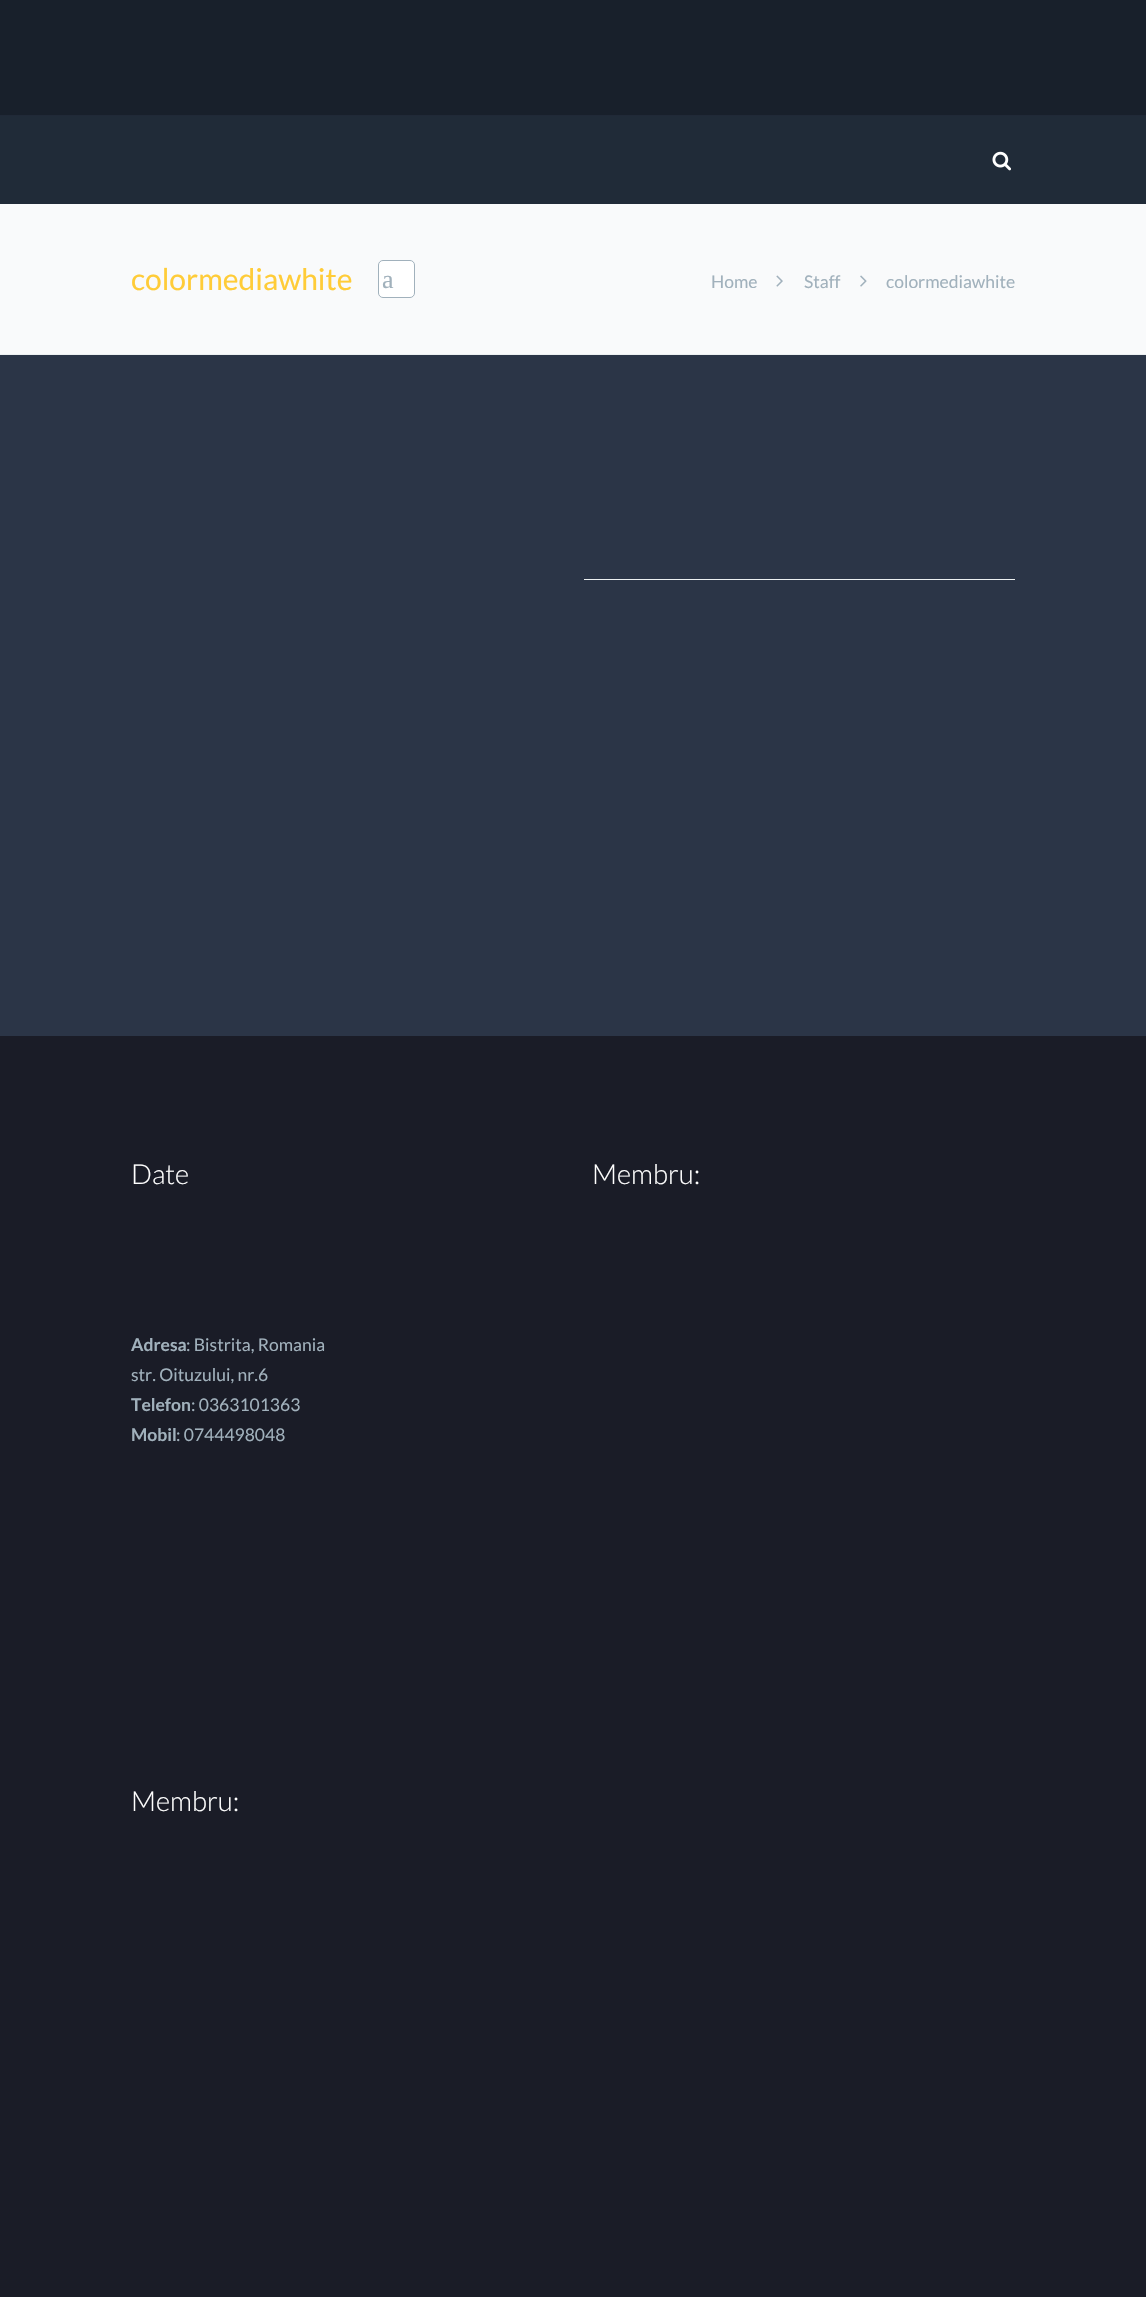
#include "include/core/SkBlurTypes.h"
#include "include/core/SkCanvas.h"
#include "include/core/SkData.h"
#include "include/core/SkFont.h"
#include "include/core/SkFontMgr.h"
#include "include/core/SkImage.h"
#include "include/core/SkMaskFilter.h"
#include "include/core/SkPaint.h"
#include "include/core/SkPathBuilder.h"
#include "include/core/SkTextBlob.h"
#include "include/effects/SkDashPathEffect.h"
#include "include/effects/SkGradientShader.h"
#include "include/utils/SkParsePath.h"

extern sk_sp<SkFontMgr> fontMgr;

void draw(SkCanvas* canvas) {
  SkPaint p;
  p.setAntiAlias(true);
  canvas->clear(SkColorSetRGB(26, 28, 39));
  p.setColor(SkColorSetRGB(24, 32, 43));
  canvas->drawRect(SkRect::MakeLTRB(0, 0, 1146, 115), p);
  p.setColor(SkColorSetRGB(32, 43, 56));
  canvas->drawRect(SkRect::MakeLTRB(0, 116, 1146, 204), p);
  p.setColor(SkColorSetRGB(32, 41, 55));
  canvas->drawRect(SkRect::MakeLTRB(0, 115, 1146, 116), p);
  canvas->drawImageRect(SkImages::DeferredFromEncodedData(SkData::MakeFromFileName("images/1.png")), SkRect::MakeLTRB(992, 151, 1011, 171), SkSamplingOptions());
  p.setColor(SkColorSetRGB(249, 250, 251));
  canvas->drawRect(SkRect::MakeLTRB(0, 204, 1146, 354), p);
  p.setColor(SkColorSetRGB(236, 240, 241));
  canvas->drawRect(SkRect::MakeLTRB(0, 354, 1146, 355), p);
  p.setColor(SK_ColorWHITE);
  canvas->drawRoundRect(SkRect::MakeLTRB(378.5f, 260.5f, 414.5f, 297.5f), 4.5f, 4.5f, p);
  p.setStyle(SkPaint::kStroke_Style);
  p.setStrokeWidth(1);
  p.setColor(SkColorSetRGB(161, 177, 188));
  canvas->drawRoundRect(SkRect::MakeLTRB(378.5f, 260.5f, 414.5f, 297.5f), 4.5f, 4.5f, p);
  canvas->drawImageRect(SkImages::DeferredFromEncodedData(SkData::MakeFromFileName("images/2.png")), SkRect::MakeLTRB(776, 275, 783, 287), SkSamplingOptions());
  canvas->drawImageRect(SkImages::DeferredFromEncodedData(SkData::MakeFromFileName("images/3.png")), SkRect::MakeLTRB(860, 275, 867, 287), SkSamplingOptions());
  p.setStyle(SkPaint::kFill_Style);
  p.setColor(SkColorSetRGB(43, 53, 71));
  canvas->drawRect(SkRect::MakeLTRB(0, 355, 1146, 1036), p);
  p.setColor(SkColorSetRGB(236, 240, 241));
  canvas->drawRect(SkRect::MakeLTRB(584, 579, 1015, 580), p);
  SkFont font1(fontMgr->matchFamilyStyle("Lato", SkFontStyle::Normal()), 30);
  font1.setSubpixel(true);
  p.setColor(SkColorSetRGB(255, 204, 56));
  canvas->drawString("colormediawhite", 131, 290, font1, p);
  SkFont font2(fontMgr->matchFamilyStyle("Liberation Serif", SkFontStyle::Normal()), 26);
  font2.setSubpixel(true);
  p.setColor(SkColorSetRGB(161, 177, 188));
  canvas->drawString("a", 382, 288, font2, p);
  SkFont font3(fontMgr->matchFamilyStyle("Lato", SkFontStyle::Normal()), 17.5f);
  font3.setSubpixel(true);
  canvas->drawString("Home", 711, 288, font3, p);
  canvas->drawString("Staff", 804, 288, font3, p);
  canvas->drawString("colormediawhite", 886, 288, font3, p);
  SkFont font4(fontMgr->matchFamilyStyle("Lato", SkFontStyle(300, SkFontStyle::kNormal_Width, SkFontStyle::kUpright_Slant)), 27.5f);
  font4.setSubpixel(true);
  p.setColor(SK_ColorWHITE);
  canvas->drawString("Date", 131, 1184, font4, p);
  SkFont font5(fontMgr->matchFamilyStyle("Lato", SkFontStyle::Bold()), 17.5f);
  font5.setSubpixel(true);
  p.setColor(SkColorSetRGB(161, 177, 188));
  canvas->drawString("Adresa", 131, 1351, font5, p);
  canvas->drawString(": Bistrita, Romania", 186, 1351, font3, p);
  canvas->drawString("str. Oituzului, nr.6", 131, 1381, font3, p);
  canvas->drawString("Telefon", 131, 1411, font5, p);
  canvas->drawString(": 0363101363", 191, 1411, font3, p);
  canvas->drawString("Mobil", 131, 1441, font5, p);
  canvas->drawString(": 0744498048", 176, 1441, font3, p);
  p.setColor(SK_ColorWHITE);
  canvas->drawString("Membru:", 592, 1184, font4, p);
  canvas->drawString("Membru:", 131, 1811, font4, p);
}
